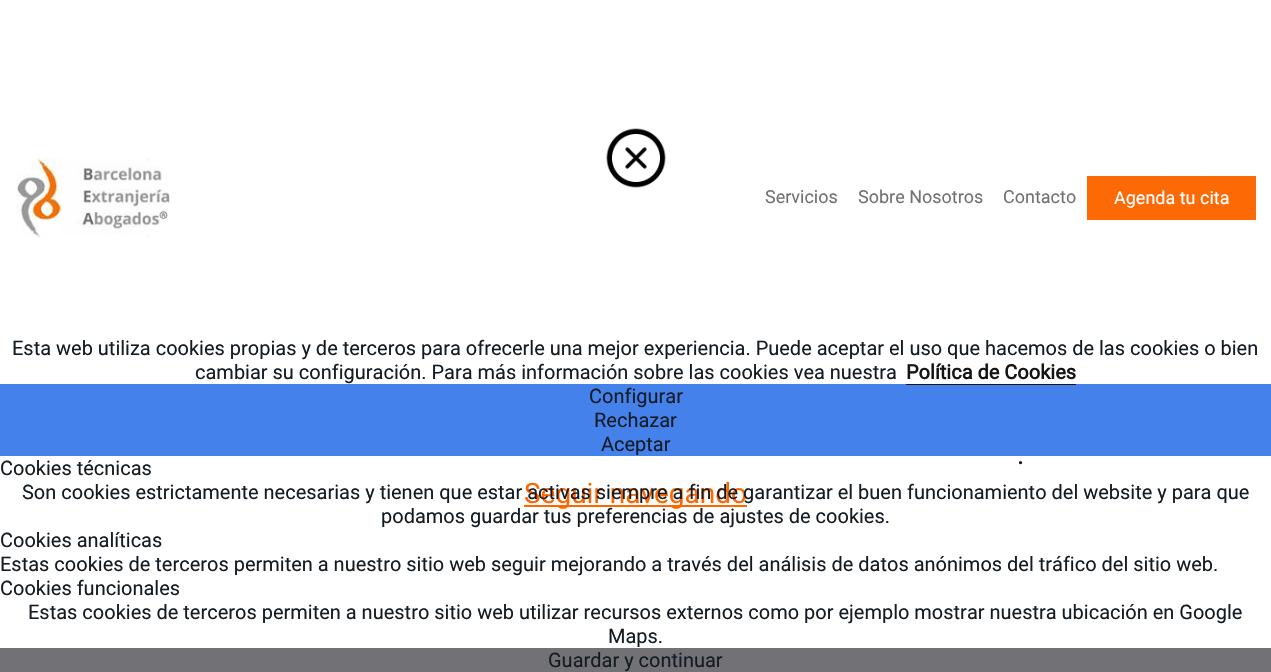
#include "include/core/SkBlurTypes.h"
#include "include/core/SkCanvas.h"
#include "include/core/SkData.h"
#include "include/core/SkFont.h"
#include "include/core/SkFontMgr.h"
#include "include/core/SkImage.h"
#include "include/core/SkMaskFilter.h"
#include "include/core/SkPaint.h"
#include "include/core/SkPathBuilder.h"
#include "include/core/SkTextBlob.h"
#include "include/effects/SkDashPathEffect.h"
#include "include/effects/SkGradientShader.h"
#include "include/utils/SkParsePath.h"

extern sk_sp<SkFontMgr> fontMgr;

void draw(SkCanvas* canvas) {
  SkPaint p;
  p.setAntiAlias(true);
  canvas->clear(SK_ColorWHITE);
  canvas->drawImageRect(SkImages::DeferredFromEncodedData(SkData::MakeFromFileName("images/1.png")), SkRect::MakeLTRB(606, 128, 666, 188), SkSamplingOptions());
  canvas->drawImageRect(SkImages::DeferredFromEncodedData(SkData::MakeFromFileName("images/2.png")), SkRect::MakeLTRB(15, 158, 170, 238), SkSamplingOptions());
  p.setColor(SkColorSetRGB(253, 105, 5));
  canvas->drawRect(SkRect::MakeLTRB(1087, 176, 1256, 220), p);
  p.setColor(SkColorSetRGB(68, 129, 234));
  canvas->drawRect(SkRect::MakeLTRB(0, 384, 1271, 456), p);
  p.setColor(SkColorSetRGB(21, 21, 21));
  canvas->drawRect(SkRect::MakeLTRB(906, 384, 1076, 385), p);
  p.setColor(SkColorSetRGB(114, 114, 118));
  canvas->drawRect(SkRect::MakeLTRB(0, 648, 1271, 672), p);
  p.setColor(SkColorSetRGB(255, 102, 0));
  canvas->drawRect(SkRect::MakeLTRB(524, 505, 747, 507), p);
  SkFont font1(fontMgr->matchFamilyStyle("Roboto", SkFontStyle::Normal()), 18);
  font1.setSubpixel(true);
  p.setColor(SkColorSetRGB(114, 114, 118));
  canvas->drawString("Servicios", 765, 203, font1, p);
  canvas->drawString("Sobre Nosotros", 858, 203, font1, p);
  canvas->drawString("Contacto", 1003, 203, font1, p);
  p.setColor(SK_ColorWHITE);
  canvas->drawString("Agenda tu cita", 1114, 204, font1, p);
  SkFont font2(fontMgr->matchFamilyStyle("Roboto", SkFontStyle::Normal()), 20);
  font2.setSubpixel(true);
  p.setColor(SkColorSetRGB(19, 27, 35));
  canvas->drawString("Esta web utiliza cookies propias y de terceros para ofrecerle una mejor experiencia. Puede aceptar el uso que hacemos de las cookies o bien", 12, 355, font2, p);
  canvas->drawString("cambiar su configuración. Para más información sobre las cookies vea nuestra", 195, 379, font2, p);
  SkFont font3(fontMgr->matchFamilyStyle("Roboto", SkFontStyle::Bold()), 20);
  font3.setSubpixel(true);
  p.setColor(SkColorSetRGB(21, 21, 21));
  canvas->drawString("Política de Cookies", 906, 379, font3, p);
  p.setColor(SkColorSetRGB(19, 27, 35));
  canvas->drawString("Configurar", 589, 403, font2, p);
  canvas->drawString("Rechazar", 594, 427, font2, p);
  canvas->drawString("Aceptar", 601, 451, font2, p);
  canvas->drawString("Cookies técnicas", 0, 475, font2, p);
  canvas->drawString("podamos guardar tus preferencias de ajustes de cookies.", 381, 523, font2, p);
  canvas->drawString("Cookies analíticas", 0, 547, font2, p);
  canvas->drawString("Estas cookies de terceros permiten a nuestro sitio web seguir mejorando a través del análisis de datos anónimos del tráfico del sitio web.", 0, 571, font2, p);
  canvas->drawString("Cookies funcionales", 0, 595, font2, p);
  canvas->drawString("Estas cookies de terceros permiten a nuestro sitio web utilizar recursos externos como por ejemplo mostrar nuestra ubicación en Google", 28, 619, font2, p);
  canvas->drawString("Maps.", 608, 643, font2, p);
  canvas->drawString("Guardar y continuar", 548, 667, font2, p);
  SkFont font4(fontMgr->matchFamilyStyle("Roboto", SkFontStyle::Normal()), 28);
  font4.setSubpixel(true);
  canvas->drawString(".", 1017, 464, font4, p);
  p.setColor(SkColorSetRGB(255, 102, 0));
  canvas->drawString("Seguir navegando", 524, 503, font4, p);
  p.setColor(SkColorSetRGB(19, 27, 35));
  canvas->drawString("Son cookies estrictamente necesarias y tienen que estar activas siempre a fin de garantizar el buen funcionamiento del website y para que", 22, 499, font2, p);
}
